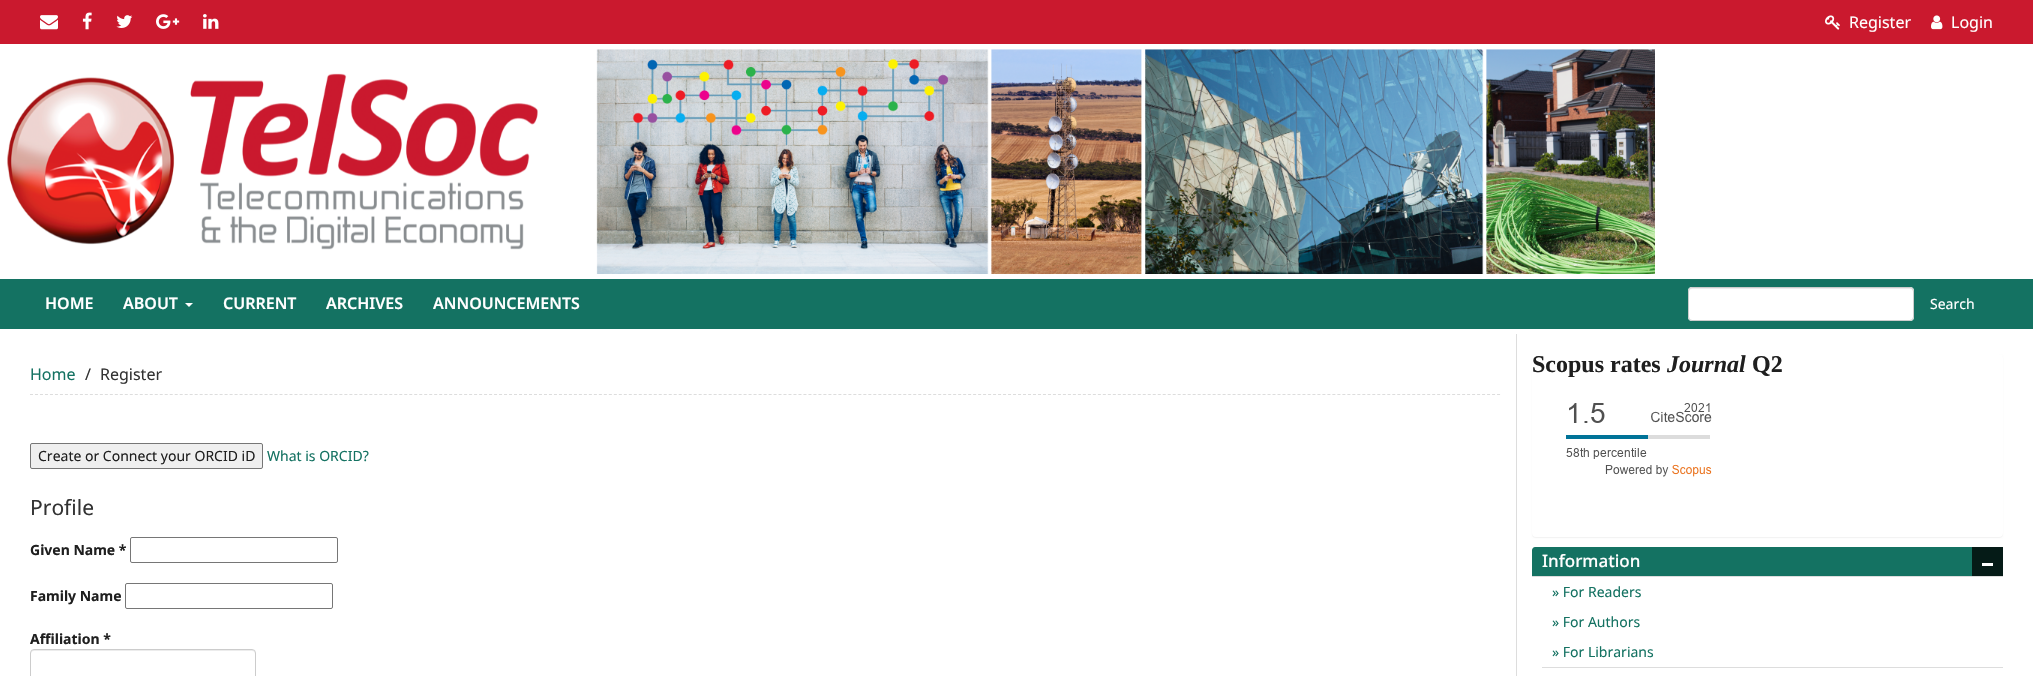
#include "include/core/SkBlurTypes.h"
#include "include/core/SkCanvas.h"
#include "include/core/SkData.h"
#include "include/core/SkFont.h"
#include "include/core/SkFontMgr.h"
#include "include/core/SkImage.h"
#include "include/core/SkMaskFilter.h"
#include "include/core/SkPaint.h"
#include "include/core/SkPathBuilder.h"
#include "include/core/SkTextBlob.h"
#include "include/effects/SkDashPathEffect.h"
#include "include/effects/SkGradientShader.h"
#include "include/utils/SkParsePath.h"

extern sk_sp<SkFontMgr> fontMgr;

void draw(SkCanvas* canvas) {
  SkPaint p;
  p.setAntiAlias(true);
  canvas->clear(SK_ColorWHITE);
  p.setColor(SkColorSetRGB(202, 25, 46));
  canvas->drawRect(SkRect::MakeLTRB(0, 0, 2033, 44), p);
  canvas->drawImageRect(SkImages::DeferredFromEncodedData(SkData::MakeFromFileName("images/1.png")), SkRect::MakeLTRB(40, 15, 58, 30), SkSamplingOptions());
  canvas->drawImageRect(SkImages::DeferredFromEncodedData(SkData::MakeFromFileName("images/2.png")), SkRect::MakeLTRB(82, 12, 92, 30), SkSamplingOptions());
  canvas->drawImageRect(SkImages::DeferredFromEncodedData(SkData::MakeFromFileName("images/3.png")), SkRect::MakeLTRB(116, 15, 133, 28), SkSamplingOptions());
  canvas->drawImageRect(SkImages::DeferredFromEncodedData(SkData::MakeFromFileName("images/4.png")), SkRect::MakeLTRB(156, 14, 180, 29), SkSamplingOptions());
  canvas->drawImageRect(SkImages::DeferredFromEncodedData(SkData::MakeFromFileName("images/5.png")), SkRect::MakeLTRB(203, 14, 219, 29), SkSamplingOptions());
  canvas->drawImageRect(SkImages::DeferredFromEncodedData(SkData::MakeFromFileName("images/6.png")), SkRect::MakeLTRB(1825, 15, 1840, 30), SkSamplingOptions());
  canvas->drawImageRect(SkImages::DeferredFromEncodedData(SkData::MakeFromFileName("images/7.png")), SkRect::MakeLTRB(1931, 15, 1943, 30), SkSamplingOptions());
  canvas->drawImageRect(SkImages::DeferredFromEncodedData(SkData::MakeFromFileName("images/8.png")), SkRect::MakeLTRB(7, 49, 1655, 274), SkSamplingOptions());
  p.setColor(SkColorSetRGB(20, 114, 98));
  canvas->drawRect(SkRect::MakeLTRB(0, 279, 2033, 329), p);
  p.setColor(SK_ColorWHITE);
  canvas->drawPath(SkPathBuilder().moveTo(185, 303).lineTo(193, 303).lineTo(189, 307).close().detach(), p);
  canvas->drawRoundRect(SkRect::MakeLTRB(1688, 287, 1914, 321), 4, 4, p);
  p.setColor(SkColorSetRGB(236, 236, 236));
  canvas->drawPath(SkPathBuilder().moveTo(1692, 289).lineTo(1910, 289).cubicTo(1912, 289, 1913, 290, 1913, 292).lineTo(1913, 291).cubicTo(1913, 289, 1912, 288, 1910, 288).lineTo(1692, 288).cubicTo(1690, 288, 1689, 289, 1689, 291).lineTo(1689, 292).cubicTo(1689, 290, 1690, 289, 1692, 289).close().detach(), p);
  p.setStyle(SkPaint::kStroke_Style);
  p.setStrokeWidth(1);
  p.setColor(SkColorSetRGB(204, 204, 204));
  canvas->drawRoundRect(SkRect::MakeLTRB(1688.5f, 287.5f, 1913.5f, 320.5f), 3.5f, 3.5f, p);
  p.setStyle(SkPaint::kFill_Style);
  p.setColor(SkColorSetRGB(221, 221, 221));
  canvas->drawRect(SkRect::MakeLTRB(1516, 334, 1517, 676), p);
  p.setStyle(SkPaint::kStroke_Style);
  p.setPathEffect(SkDashPathEffect::Make({{3, 1.99f}}, 0));
  canvas->drawPath(SkPathBuilder().moveTo(30, 394.5f).lineTo(1501, 394.5f).detach(), p);
  p.setPathEffect(nullptr);
  p.setStyle(SkPaint::kFill_Style);
  p.setColor(SkColorSetRGB(239, 239, 239));
  canvas->drawRoundRect(SkRect::MakeLTRB(30.5f, 443.5f, 262.5f, 468.5f), 1.5f, 1.5f, p);
  p.setStyle(SkPaint::kStroke_Style);
  p.setColor(SkColorSetRGB(118, 118, 118));
  canvas->drawRoundRect(SkRect::MakeLTRB(30.5f, 443.5f, 262.5f, 468.5f), 1.5f, 1.5f, p);
  canvas->drawRoundRect(SkRect::MakeLTRB(130.5f, 537.5f, 337.5f, 562.5f), 1.5f, 1.5f, p);
  canvas->drawRoundRect(SkRect::MakeLTRB(125.5f, 583.5f, 332.5f, 608.5f), 1.5f, 1.5f, p);
  p.setStyle(SkPaint::kFill_Style);
  p.setColor(SkColorSetRGB(236, 236, 236));
  canvas->drawPath(SkPathBuilder().moveTo(34, 651).lineTo(252, 651).cubicTo(254, 651, 255, 652, 255, 654).lineTo(255, 653).cubicTo(255, 651, 254, 650, 252, 650).lineTo(34, 650).cubicTo(32, 650, 31, 651, 31, 653).lineTo(31, 654).cubicTo(31, 652, 32, 651, 34, 651).close().detach(), p);
  p.setStyle(SkPaint::kStroke_Style);
  p.setColor(SkColorSetRGB(204, 204, 204));
  canvas->drawRoundRect(SkRect::MakeLTRB(30.5f, 649.5f, 255.5f, 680.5f), 3.5f, 3.5f, p);
  p.setStyle(SkPaint::kFill_Style);
  p.setColor(SkColorSetARGB(13, 0, 0, 0));
  p.setMaskFilter(SkMaskFilter::MakeBlur(kNormal_SkBlurStyle, 0.5f));
  canvas->drawRoundRect(SkRect::MakeLTRB(1532, 355, 2003, 538), 4, 4, p);
  p.setMaskFilter(nullptr);
  p.setColor(SK_ColorWHITE);
  canvas->drawRoundRect(SkRect::MakeLTRB(1532, 354, 2003, 537), 4, 4, p);
  canvas->drawImageRect(SkImages::DeferredFromEncodedData(SkData::MakeFromFileName("images/9.png")), SkRect::MakeLTRB(1566, 403, 1712, 477), SkSamplingOptions());
  p.setColor(SkColorSetRGB(20, 114, 98));
  canvas->drawPath(SkPathBuilder().moveTo(1535, 547).lineTo(2000, 547).cubicTo(2001.5f, 547, 2003, 548.5f, 2003, 550).lineTo(2003, 577).lineTo(1532, 577).lineTo(1532, 550).cubicTo(1532, 548.5f, 1533.5f, 547, 1535, 547).close().detach(), p);
  p.setColor(SkColorSetRGB(221, 221, 221));
  canvas->drawRect(SkRect::MakeLTRB(1532, 576, 2003, 577), p);
  p.setColor(SkColorSetRGB(5, 27, 23));
  canvas->drawRect(SkRect::MakeLTRB(1972, 547, 2003, 576), p);
  p.setColor(SK_ColorWHITE);
  canvas->drawRect(SkRect::MakeLTRB(1982, 563, 1993, 566), p);
  p.setColor(SkColorSetRGB(221, 221, 221));
  canvas->drawRect(SkRect::MakeLTRB(1542, 667, 2003, 668), p);
  SkFont font1(fontMgr->matchFamilyStyle("Noto Sans", SkFontStyle::Normal()), 16);
  font1.setSubpixel(true);
  p.setColor(SK_ColorWHITE);
  canvas->drawString("Register", 1849, 28, font1, p);
  canvas->drawString("Login", 1951, 28, font1, p);
  SkFont font2(fontMgr->matchFamilyStyle("Noto Sans", SkFontStyle(600, SkFontStyle::kNormal_Width, SkFontStyle::kUpright_Slant)), 16);
  font2.setSubpixel(true);
  canvas->drawString("HOME", 45, 309, font2, p);
  canvas->drawString("ABOUT", 123, 309, font2, p);
  canvas->drawString("CURRENT", 223, 309, font2, p);
  canvas->drawString("ARCHIVES", 326, 309, font2, p);
  canvas->drawString("ANNOUNCEMENTS", 433, 309, font2, p);
  SkFont font3(fontMgr->matchFamilyStyle("Noto Sans", SkFontStyle::Normal()), 14);
  font3.setSubpixel(true);
  canvas->drawString("Search", 1930, 309, font3, p);
  p.setColor(SkColorSetRGB(20, 114, 98));
  canvas->drawString("Home", 30, 380, font1, p);
  p.setColor(SkColorSetRGB(51, 51, 51));
  canvas->drawString("/", 85, 380, font1, p);
  canvas->drawString("Register", 100, 380, font1, p);
  p.setColor(SkColorSetRGB(31, 31, 31));
  canvas->drawString("Create or Connect your ORCID iD", 38, 461, font3, p);
  p.setColor(SkColorSetRGB(20, 114, 98));
  canvas->drawString("What is ORCID?", 267, 461, font3, p);
  SkFont font4(fontMgr->matchFamilyStyle("Noto Sans", SkFontStyle::Normal()), 21);
  font4.setSubpixel(true);
  p.setColor(SkColorSetRGB(51, 51, 51));
  canvas->drawString("Profile", 30, 515, font4, p);
  SkFont font5(fontMgr->matchFamilyStyle("Noto Sans", SkFontStyle::Bold()), 14);
  font5.setSubpixel(true);
  p.setColor(SkColorSetRGB(31, 31, 31));
  canvas->drawString("Given Name *", 30, 555, font5, p);
  canvas->drawString("Family Name", 30, 601, font5, p);
  canvas->drawString("Affiliation *", 30, 644, font5, p);
  SkFont font6(fontMgr->matchFamilyStyle("Liberation Serif", SkFontStyle::Bold()), 24);
  font6.setSubpixel(true);
  canvas->drawString("Scopus rates", 1532, 372, font6, p);
  SkFont font7(fontMgr->matchFamilyStyle("Liberation Serif", SkFontStyle::BoldItalic()), 24);
  font7.setSubpixel(true);
  canvas->drawString("Journal", 1667, 372, font7, p);
  canvas->drawString("Q2", 1752, 372, font6, p);
  SkFont font8(fontMgr->matchFamilyStyle("Noto Sans", SkFontStyle(500, SkFontStyle::kNormal_Width, SkFontStyle::kUpright_Slant)), 17);
  font8.setSubpixel(true);
  p.setColor(SK_ColorWHITE);
  canvas->drawString("Information", 1542, 567, font8, p);
  p.setColor(SkColorSetRGB(20, 114, 98));
  canvas->drawString("» For Readers", 1552, 597, font3, p);
  canvas->drawString("» For Authors", 1552, 627, font3, p);
  canvas->drawString("» For Librarians", 1552, 657, font3, p);
}
